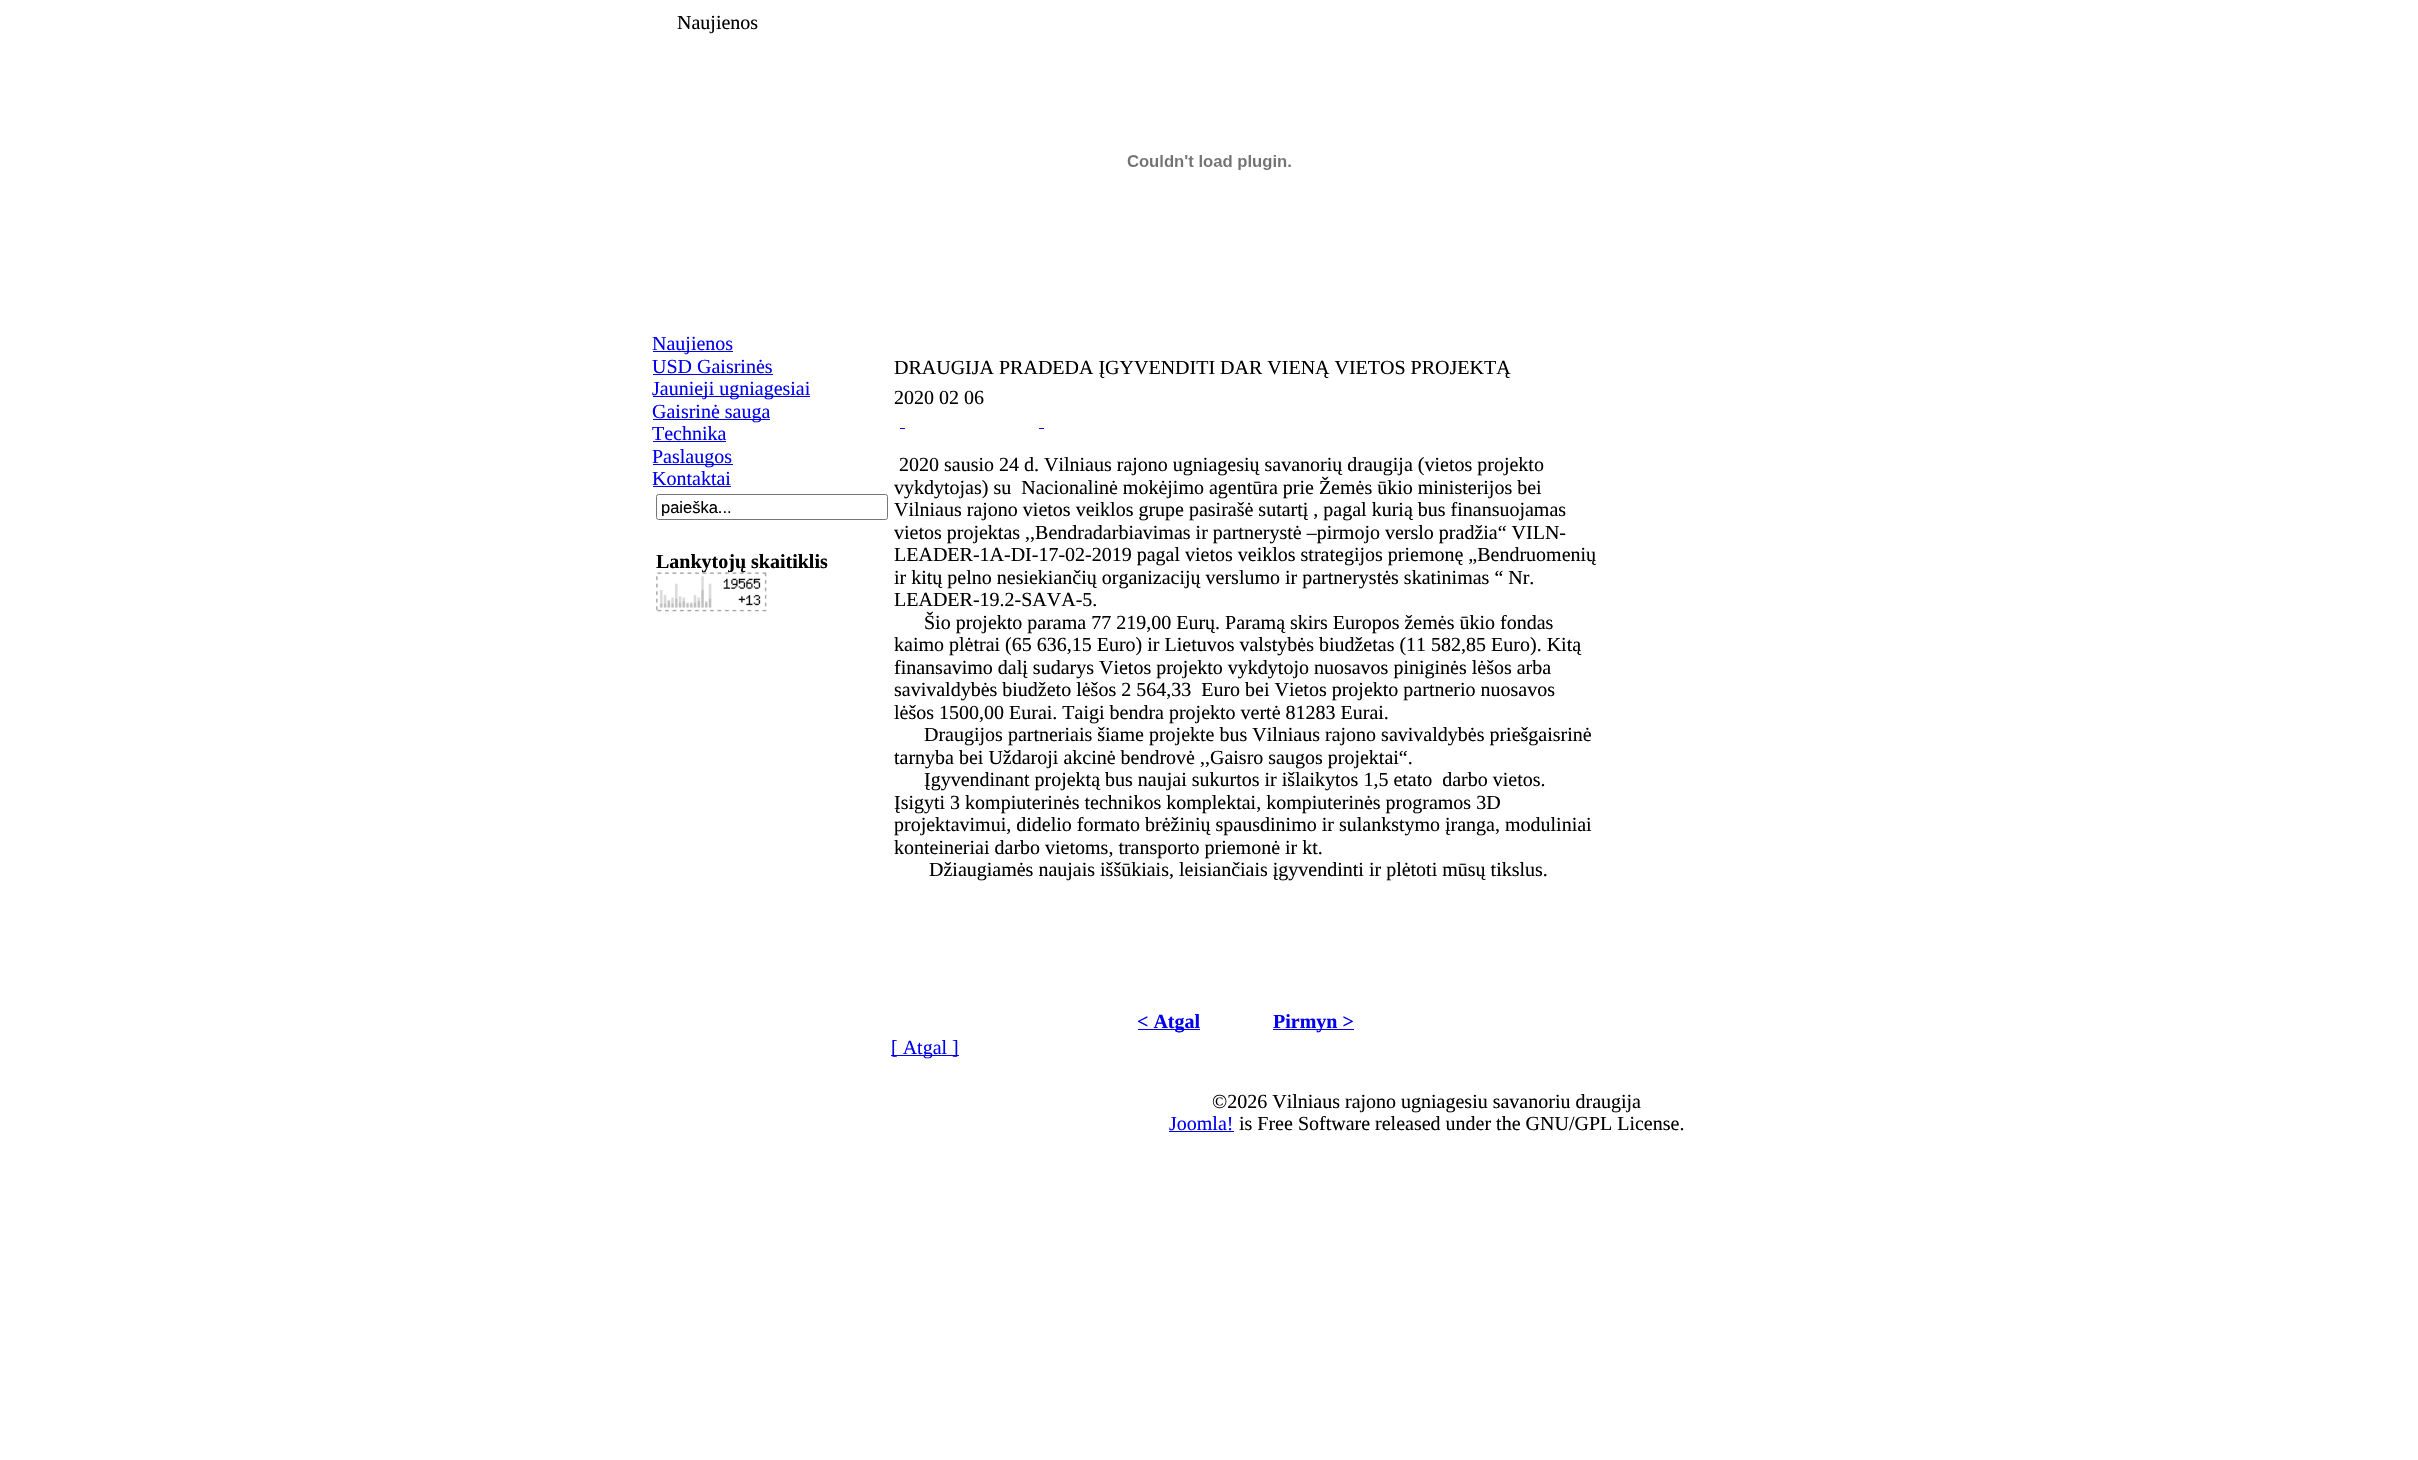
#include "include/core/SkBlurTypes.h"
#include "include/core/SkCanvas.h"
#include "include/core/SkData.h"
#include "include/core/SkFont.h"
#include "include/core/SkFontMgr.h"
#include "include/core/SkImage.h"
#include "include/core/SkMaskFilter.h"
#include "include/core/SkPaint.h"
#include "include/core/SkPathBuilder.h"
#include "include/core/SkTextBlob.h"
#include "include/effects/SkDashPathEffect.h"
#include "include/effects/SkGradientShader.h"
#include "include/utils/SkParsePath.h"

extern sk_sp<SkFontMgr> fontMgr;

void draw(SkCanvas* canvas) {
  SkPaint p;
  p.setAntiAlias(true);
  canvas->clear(SK_ColorWHITE);
  canvas->drawImageRect(SkImages::DeferredFromEncodedData(SkData::MakeFromFileName("images/1.png")), SkRect::MakeLTRB(1127, 155, 1291, 170), SkSamplingOptions());
  p.setColor(SkColorSetRGB(0, 0, 238));
  canvas->drawRect(SkRect::MakeLTRB(653, 351, 733, 352), p);
  canvas->drawRect(SkRect::MakeLTRB(653, 374, 773, 375), p);
  canvas->drawRect(SkRect::MakeLTRB(653, 396, 810, 397), p);
  canvas->drawRect(SkRect::MakeLTRB(653, 419, 770, 420), p);
  canvas->drawRect(SkRect::MakeLTRB(653, 441, 726, 442), p);
  canvas->drawRect(SkRect::MakeLTRB(653, 464, 733, 465), p);
  canvas->drawRect(SkRect::MakeLTRB(653, 486, 731, 487), p);
  p.setStyle(SkPaint::kStroke_Style);
  p.setStrokeWidth(1);
  p.setColor(SkColorSetRGB(118, 118, 118));
  canvas->drawRoundRect(SkRect::MakeLTRB(656.5f, 494.5f, 887.5f, 519.5f), 2, 2, p);
  p.setStyle(SkPaint::kFill_Style);
  p.setColor(SkColorSetRGB(0, 0, 238));
  canvas->drawRect(SkRect::MakeLTRB(900, 428, 905, 429), p);
  canvas->drawRect(SkRect::MakeLTRB(1039, 428, 1044, 429), p);
  canvas->drawRect(SkRect::MakeLTRB(1138, 1029, 1200, 1030), p);
  canvas->drawRect(SkRect::MakeLTRB(1273, 1029, 1354, 1030), p);
  canvas->drawRect(SkRect::MakeLTRB(891, 1055, 959, 1056), p);
  canvas->drawRect(SkRect::MakeLTRB(1169, 1131, 1234, 1132), p);
  SkFont font1(fontMgr->matchFamilyStyle("Liberation Serif", SkFontStyle::Normal()), 20);
  font1.setSubpixel(true);
  p.setColor(SK_ColorBLACK);
  canvas->drawString("Naujienos", 677, 29, font1, p);
  p.setColor(SkColorSetRGB(0, 0, 238));
  canvas->drawString("Naujienos", 652, 350, font1, p);
  canvas->drawString("USD Gaisrinės", 652, 373, font1, p);
  canvas->drawString("Jaunieji ugniagesiai", 652, 395, font1, p);
  canvas->drawString("Gaisrinė sauga", 652, 418, font1, p);
  canvas->drawString("Technika", 652, 440, font1, p);
  canvas->drawString("Paslaugos", 652, 463, font1, p);
  canvas->drawString("Kontaktai", 652, 485, font1, p);
  canvas->save();
  canvas->clipRect(SkRect::MakeLTRB(661, 498, 883, 516));
  SkFont font2(fontMgr->matchFamilyStyle("Liberation Sans", SkFontStyle::Normal()), 16.5f);
  font2.setSubpixel(true);
  p.setColor(SK_ColorBLACK);
  canvas->drawString("paieška...", 661, 513, font2, p);
  canvas->restore();
  SkFont font3(fontMgr->matchFamilyStyle("Liberation Serif", SkFontStyle::Bold()), 20);
  font3.setSubpixel(true);
  canvas->drawString("Lankytojų skaitiklis", 656, 568, font3, p);
  canvas->drawImageRect(SkImages::DeferredFromEncodedData(SkData::MakeFromFileName("images/2.png")), SkRect::MakeLTRB(656, 572, 767, 612), SkSamplingOptions());
  canvas->drawString("DRAUGIJA PRADEDA ĮGYVENDITI DAR VIENĄ VIETOS PROJEKTĄ", 894, 374, font1, p);
  canvas->drawString("2020 02 06", 894, 404, font1, p);
  canvas->drawString("2020 sausio 24 d. Vilniaus rajono ugniagesių savanorių draugija (vietos projekto", 899, 471, font1, p);
  canvas->drawString("vykdytojas) su  Nacionalinė mokėjimo agentūra prie Žemės ūkio ministerijos bei", 894, 494, font1, p);
  canvas->drawString("Vilniaus rajono vietos veiklos grupe pasirašė sutartį , pagal kurią bus finansuojamas", 894, 516, font1, p);
  canvas->drawString("vietos projektas ,,Bendradarbiavimas ir partnerystė –pirmojo verslo pradžia“ VILN-", 894, 539, font1, p);
  canvas->drawString("LEADER-1A-DI-17-02-2019 pagal vietos veiklos strategijos priemonę „Bendruomenių", 894, 561, font1, p);
  canvas->drawString("ir kitų pelno nesiekiančių organizacijų verslumo ir partnerystės skatinimas “ Nr.", 894, 584, font1, p);
  canvas->drawString("LEADER-19.2-SAVA-5.", 894, 606, font1, p);
  canvas->drawString("Šio projekto parama 77 219,00 Eurų. Paramą skirs Europos žemės ūkio fondas", 924, 629, font1, p);
  canvas->drawString("kaimo plėtrai (65 636,15 Euro) ir Lietuvos valstybės biudžetas (11 582,85 Euro). Kitą", 894, 651, font1, p);
  canvas->drawString("finansavimo dalį sudarys Vietos projekto vykdytojo nuosavos piniginės lėšos arba", 894, 674, font1, p);
  canvas->drawString("savivaldybės biudžeto lėšos 2 564,33  Euro bei Vietos projekto partnerio nuosavos", 894, 696, font1, p);
  canvas->drawString("lėšos 1500,00 Eurai. Taigi bendra projekto vertė 81283 Eurai.", 894, 719, font1, p);
  canvas->drawString("Draugijos partneriais šiame projekte bus Vilniaus rajono savivaldybės priešgaisrinė", 924, 741, font1, p);
  canvas->drawString("tarnyba bei Uždaroji akcinė bendrovė ,,Gaisro saugos projektai“.", 894, 764, font1, p);
  canvas->drawString("Įgyvendinant projektą bus naujai sukurtos ir išlaikytos 1,5 etato  darbo vietos.", 924, 786, font1, p);
  canvas->drawString("Įsigyti 3 kompiuterinės technikos komplektai, kompiuterinės programos 3D", 894, 809, font1, p);
  canvas->drawString("projektavimui, didelio formato brėžinių spausdinimo ir sulankstymo įranga, moduliniai", 894, 831, font1, p);
  canvas->drawString("konteineriai darbo vietoms, transporto priemonė ir kt.", 894, 854, font1, p);
  canvas->drawString("Džiaugiamės naujais iššūkiais, leisiančiais įgyvendinti ir plėtoti mūsų tikslus.", 929, 876, font1, p);
  p.setColor(SkColorSetRGB(0, 0, 238));
  canvas->drawString("< Atgal", 1137, 1028, font3, p);
  canvas->drawString("Pirmyn >", 1273, 1028, font3, p);
  canvas->drawString("[ Atgal ]", 891, 1054, font1, p);
  p.setColor(SK_ColorBLACK);
  canvas->drawString("©2026 Vilniaus rajono ugniagesiu savanoriu draugija", 1212, 1108, font1, p);
  p.setColor(SkColorSetRGB(0, 0, 238));
  canvas->drawString("Joomla!", 1169, 1130, font1, p);
  p.setColor(SK_ColorBLACK);
  canvas->drawString("is Free Software released under the GNU/GPL License.", 1239, 1130, font1, p);
}
